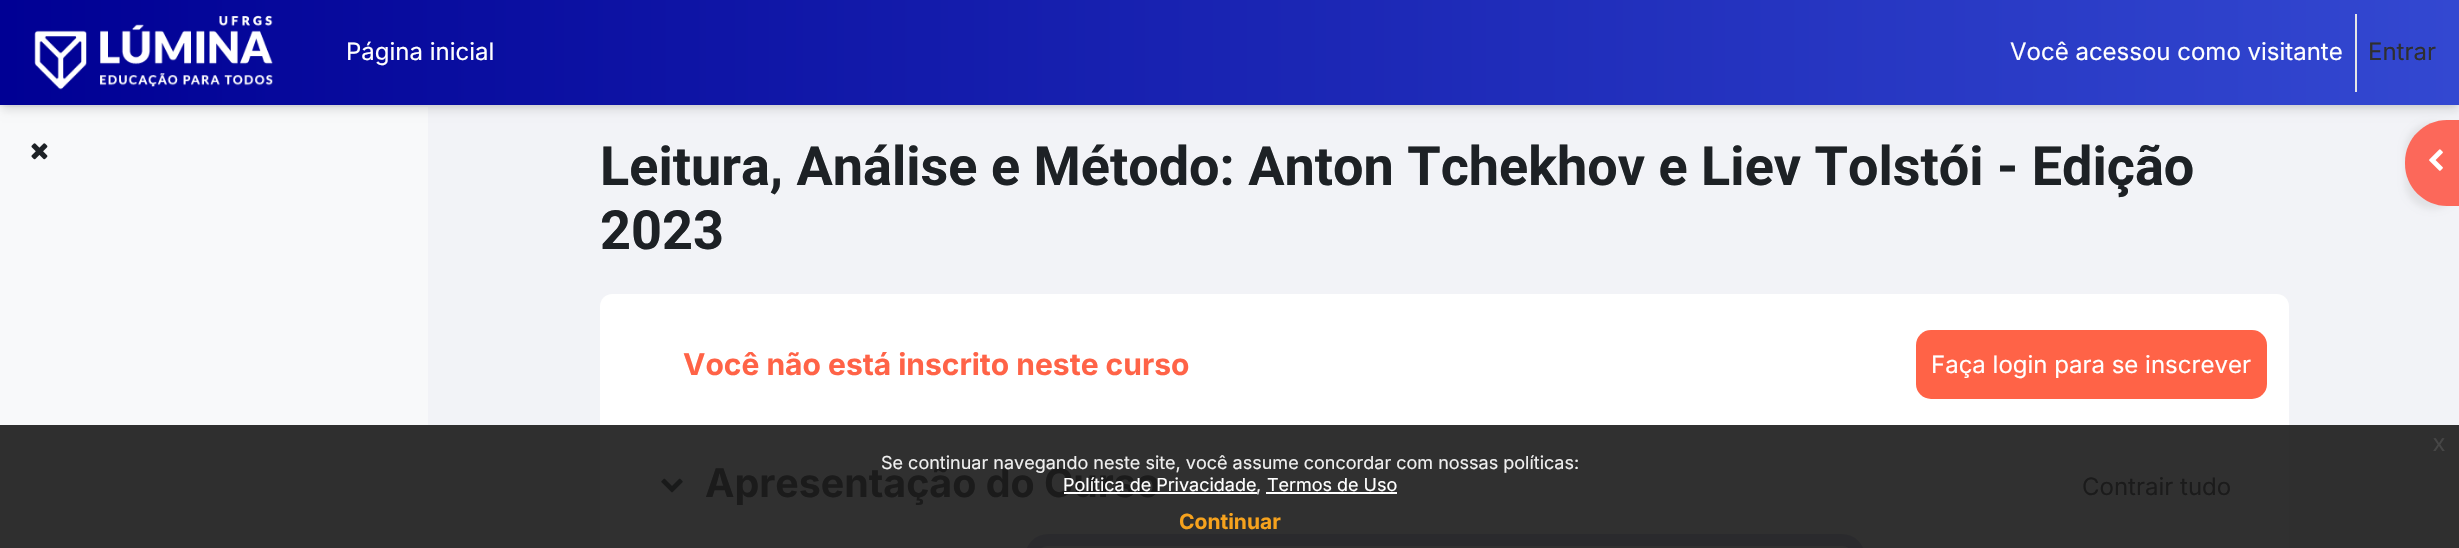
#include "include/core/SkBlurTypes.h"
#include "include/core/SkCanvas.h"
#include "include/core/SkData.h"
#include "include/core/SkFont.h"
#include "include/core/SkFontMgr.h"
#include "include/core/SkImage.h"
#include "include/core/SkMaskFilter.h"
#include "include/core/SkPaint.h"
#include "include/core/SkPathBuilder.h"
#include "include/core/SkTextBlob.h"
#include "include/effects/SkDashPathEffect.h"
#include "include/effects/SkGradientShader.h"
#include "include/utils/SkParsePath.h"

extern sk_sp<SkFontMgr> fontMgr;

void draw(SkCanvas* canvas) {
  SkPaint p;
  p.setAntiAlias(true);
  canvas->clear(SkColorSetRGB(242, 243, 247));
  p.setColor(SkColorSetRGB(47, 47, 47));
  canvas->drawRect(SkRect::MakeLTRB(0, 425, 2459, 548), p);
  p.setColor(SkColorSetRGB(248, 249, 250));
  canvas->drawRect(SkRect::MakeLTRB(0, 107, 428, 425), p);
  p.setColor(SkColorSetARGB(26, 0, 0, 0));
  p.setMaskFilter(SkMaskFilter::MakeBlur(kNormal_SkBlurStyle, 3));
  canvas->drawRect(SkRect::MakeLTRB(3, 6, 2457, 105), p);
  p.setMaskFilter(nullptr);
  p.setColor(SkColorSetARGB(18, 0, 0, 0));
  p.setMaskFilter(SkMaskFilter::MakeBlur(kNormal_SkBlurStyle, 3));
  canvas->drawRoundRect(SkRect::MakeLTRB(2405, 123, 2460, 209), 42, 42, p);
  p.setMaskFilter(nullptr);
  p.setColor(SkColorSetRGB(252, 104, 90));
  canvas->drawPath(SkPathBuilder().moveTo(2447, 120).lineTo(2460, 120).lineTo(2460, 206).lineTo(2447, 206).cubicTo(2424, 206, 2405, 187, 2405, 164).lineTo(2405, 162).cubicTo(2405, 139, 2424, 120, 2447, 120).close().detach(), p);
  p.setColor(SkColorSetARGB(26, 0, 0, 0));
  p.setMaskFilter(SkMaskFilter::MakeBlur(kNormal_SkBlurStyle, 4.5f));
  canvas->drawRect(SkRect::MakeLTRB(2, 8, 2459, 110), p);
  p.setMaskFilter(nullptr);
  {
    const SkColor colors[] = {SkColorSetRGB(0, 0, 148), SkColorSetRGB(51, 72, 209)};
    const float stops[] = {0, 1};
    const SkPoint ends[] = {{0, 53}, {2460, 52}};
    p.setShader(SkGradientShader::MakeLinear(ends, colors, stops, 2, SkTileMode::kClamp));
    p.setAlpha(255);
  }
  canvas->drawRect(SkRect::MakeLTRB(0, 0, 2459, 105), p);
  canvas->drawImageRect(SkImages::DeferredFromEncodedData(SkData::MakeFromFileName("images/1.png")), SkRect::MakeLTRB(34, 15, 273, 90), SkSamplingOptions());
  p.setShader(nullptr);
  p.setColor(SkColorSetRGB(230, 230, 230));
  canvas->drawRect(SkRect::MakeLTRB(2355, 14, 2357, 92), p);
  canvas->drawImageRect(SkImages::DeferredFromEncodedData(SkData::MakeFromFileName("images/2.png")), SkRect::MakeLTRB(31, 143, 48, 160), SkSamplingOptions());
  p.setColor(SK_ColorWHITE);
  canvas->drawPath(SkPathBuilder().moveTo(612, 294).lineTo(2277, 294).cubicTo(2283.5f, 294, 2289, 299.5f, 2289, 306).lineTo(2289, 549).lineTo(600, 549).lineTo(600, 306).cubicTo(600, 299.5f, 605.5f, 294, 612, 294).close().detach(), p);
  p.setColor(SkColorSetRGB(48, 48, 48));
  canvas->drawRect(SkRect::MakeLTRB(600, 425, 2289, 548), p);
  canvas->drawImageRect(SkImages::DeferredFromEncodedData(SkData::MakeFromFileName("images/3.png")), SkRect::MakeLTRB(2429, 149, 2443, 171), SkSamplingOptions());
  p.setColor(SkColorSetRGB(255, 99, 71));
  canvas->drawRoundRect(SkRect::MakeLTRB(1916, 330, 2267, 399), 15, 15, p);
  canvas->drawImageRect(SkImages::DeferredFromEncodedData(SkData::MakeFromFileName("images/4.png")), SkRect::MakeLTRB(661, 478, 683, 493), SkSamplingOptions());
  p.setStyle(SkPaint::kStroke_Style);
  p.setStrokeWidth(12);
  p.setColor(SkColorSetRGB(42, 42, 45));
  canvas->drawRoundRect(SkRect::MakeLTRB(1031, 540, 1859, 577), 17, 17, p);
  p.setStyle(SkPaint::kFill_Style);
  p.setColor(SK_ColorWHITE);
  canvas->drawRect(SkRect::MakeLTRB(1266, 492, 1397, 494), p);
  SkFont font1(fontMgr->matchFamilyStyle("Inter", SkFontStyle::Normal()), 24);
  font1.setSubpixel(true);
  canvas->drawString("Página inicial", 346, 60, font1, p);
  canvas->drawString("Você acessou como visitante", 2010, 60, font1, p);
  p.setColor(SkColorSetRGB(47, 47, 47));
  canvas->drawString("Entrar", 2368, 60, font1, p);
  SkFont font2(fontMgr->matchFamilyStyle("Roboto", SkFontStyle::Bold()), 54);
  font2.setSubpixel(true);
  p.setColor(SkColorSetRGB(29, 33, 37));
  canvas->drawString("Leitura, Análise e Método: Anton Tchekhov e Liev Tolstói - Edição", 600, 185, font2, p);
  canvas->drawString("2023", 600, 249, font2, p);
  SkFont font3(fontMgr->matchFamilyStyle("Inter", SkFontStyle::Bold()), 30);
  font3.setSubpixel(true);
  p.setColor(SkColorSetRGB(255, 99, 71));
  canvas->drawString("Você não está inscrito neste curso", 683, 375, font3, p);
  p.setColor(SK_ColorWHITE);
  canvas->drawString("Faça login para se inscrever", 1931, 373, font1, p);
  SkFont font4(fontMgr->matchFamilyStyle("Inter", SkFontStyle::Bold()), 39.4f);
  font4.setSubpixel(true);
  p.setColor(SkColorSetRGB(27, 27, 27));
  canvas->drawString("Apresentação do Curso", 705, 497, font4, p);
  canvas->drawString("Contrair tudo", 2082, 495, font1, p);
  SkFont font5(fontMgr->matchFamilyStyle("Liberation Sans", SkFontStyle::Normal()), 24);
  font5.setSubpixel(true);
  p.setColor(SkColorSetRGB(70, 70, 70));
  canvas->drawString("x", 2433, 451, font5, p);
  SkFont font6(fontMgr->matchFamilyStyle("Inter", SkFontStyle::Normal()), 18);
  font6.setSubpixel(true);
  p.setColor(SkColorSetRGB(239, 239, 239));
  canvas->drawString("Se continuar navegando neste site, você assume concordar com nossas políticas:", 881, 469, font6, p);
  p.setColor(SK_ColorWHITE);
  canvas->drawString("Política de Privacidade", 1063, 491, font6, p);
  canvas->drawRect(SkRect::MakeLTRB(1064, 492, 1257, 494), p);
  p.setColor(SkColorSetRGB(239, 239, 239));
  canvas->drawString(",", 1256, 491, font6, p);
  p.setColor(SK_ColorWHITE);
  canvas->drawString("Termos de Uso", 1267, 491, font6, p);
  SkFont font7(fontMgr->matchFamilyStyle("Inter", SkFontStyle::Bold()), 21);
  font7.setSubpixel(true);
  p.setColor(SkColorSetRGB(246, 162, 29));
  canvas->drawString("Continuar", 1179, 529, font7, p);
}
